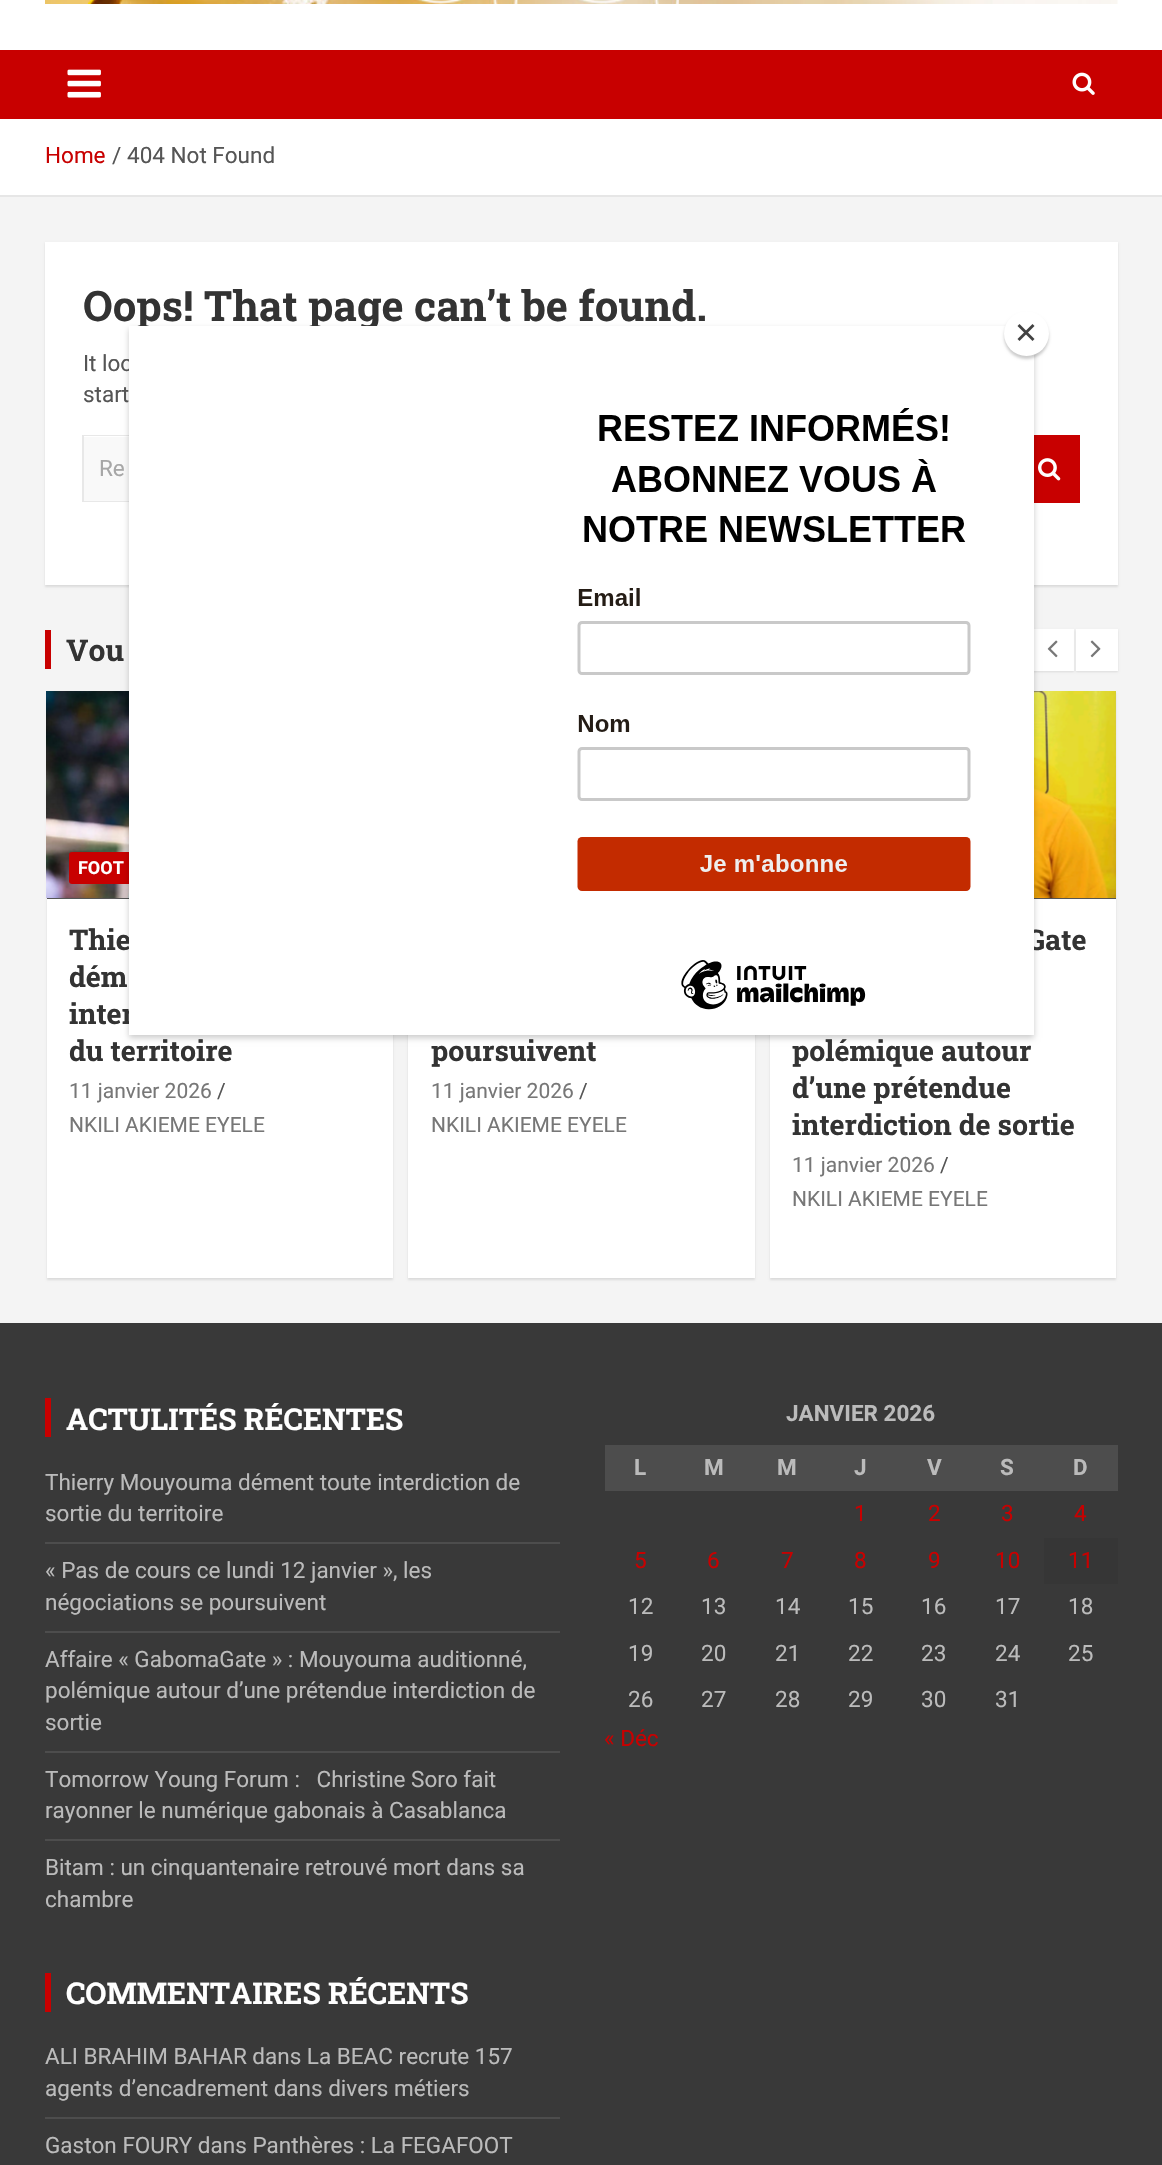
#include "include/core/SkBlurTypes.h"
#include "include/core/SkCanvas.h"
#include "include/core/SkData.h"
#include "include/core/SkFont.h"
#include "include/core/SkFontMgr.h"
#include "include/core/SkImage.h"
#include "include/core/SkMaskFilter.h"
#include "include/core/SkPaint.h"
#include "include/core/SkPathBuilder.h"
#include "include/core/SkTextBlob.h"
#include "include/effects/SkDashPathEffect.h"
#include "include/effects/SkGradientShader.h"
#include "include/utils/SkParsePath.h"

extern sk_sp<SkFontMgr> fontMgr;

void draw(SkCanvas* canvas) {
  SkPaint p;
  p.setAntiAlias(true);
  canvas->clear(SkColorSetRGB(244, 244, 244));
  p.setColor(SK_ColorWHITE);
  canvas->drawRect(SkRect::MakeLTRB(0, 0, 1162, 50), p);
  canvas->drawImageRect(SkImages::DeferredFromEncodedData(SkData::MakeFromFileName("images/1.png")), SkRect::MakeLTRB(45, 0, 1118, 4), SkSamplingOptions());
  p.setColor(SkColorSetRGB(200, 0, 0));
  canvas->drawRect(SkRect::MakeLTRB(0, 50, 1162, 119), p);
  canvas->drawImageRect(SkImages::DeferredFromEncodedData(SkData::MakeFromFileName("images/2.png")), SkRect::MakeLTRB(67, 69, 101, 98), SkSamplingOptions());
  canvas->drawImageRect(SkImages::DeferredFromEncodedData(SkData::MakeFromFileName("images/3.png")), SkRect::MakeLTRB(1072, 72, 1095, 95), SkSamplingOptions());
  p.setColor(SK_ColorWHITE);
  canvas->drawRect(SkRect::MakeLTRB(0, 119, 1162, 195), p);
  p.setColor(SkColorSetRGB(230, 230, 230));
  canvas->drawRect(SkRect::MakeLTRB(0, 195, 1162, 197), p);
  p.setColor(SkColorSetARGB(26, 0, 0, 0));
  p.setMaskFilter(SkMaskFilter::MakeBlur(kNormal_SkBlurStyle, 1));
  canvas->drawRect(SkRect::MakeLTRB(45, 243, 1118, 587), p);
  p.setMaskFilter(nullptr);
  p.setColor(SK_ColorWHITE);
  canvas->drawRect(SkRect::MakeLTRB(45, 242, 1118, 585), p);
  p.setColor(SkColorSetRGB(249, 249, 249));
  canvas->drawRect(SkRect::MakeLTRB(84, 437, 129, 501), p);
  p.setColor(SkColorSetRGB(232, 232, 232));
  canvas->drawPath(SkPathBuilder().moveTo(82, 435).lineTo(1020, 435).lineTo(1020, 436).lineTo(84, 436).close().detach(), p);
  canvas->drawPath(SkPathBuilder().moveTo(1020, 502).lineTo(82, 502).lineTo(84, 501).lineTo(1020, 501).close().detach(), p);
  p.setColor(SkColorSetARGB(23, 0, 0, 0));
  canvas->drawPath(SkPathBuilder().moveTo(82, 502).lineTo(82, 435).lineTo(84, 436).lineTo(84, 501).close().detach(), p);
  p.setColor(SkColorSetRGB(200, 0, 0));
  canvas->drawRect(SkRect::MakeLTRB(1034, 435, 1080, 503), p);
  canvas->drawImageRect(SkImages::DeferredFromEncodedData(SkData::MakeFromFileName("images/4.png")), SkRect::MakeLTRB(1038, 458, 1061, 481), SkSamplingOptions());
  canvas->drawRect(SkRect::MakeLTRB(45, 630, 51, 669), p);
  p.setColor(SkColorSetARGB(26, 0, 0, 0));
  p.setMaskFilter(SkMaskFilter::MakeBlur(kNormal_SkBlurStyle, 1));
  canvas->drawRect(SkRect::MakeLTRB(1032, 630, 1074, 672), p);
  p.setMaskFilter(nullptr);
  p.setColor(SK_ColorWHITE);
  canvas->drawRect(SkRect::MakeLTRB(1034, 629, 1074, 671), p);
  canvas->drawImageRect(SkImages::DeferredFromEncodedData(SkData::MakeFromFileName("images/5.png")), SkRect::MakeLTRB(1047, 640, 1058, 658), SkSamplingOptions());
  p.setColor(SkColorSetARGB(26, 0, 0, 0));
  p.setMaskFilter(SkMaskFilter::MakeBlur(kNormal_SkBlurStyle, 1));
  canvas->drawRect(SkRect::MakeLTRB(1076, 630, 1118, 672), p);
  p.setMaskFilter(nullptr);
  p.setColor(SK_ColorWHITE);
  canvas->drawRect(SkRect::MakeLTRB(1076, 629, 1118, 671), p);
  canvas->drawImageRect(SkImages::DeferredFromEncodedData(SkData::MakeFromFileName("images/6.png")), SkRect::MakeLTRB(1090, 640, 1101, 658), SkSamplingOptions());
  p.setColor(SkColorSetARGB(26, 0, 0, 0));
  p.setMaskFilter(SkMaskFilter::MakeBlur(kNormal_SkBlurStyle, 1));
  canvas->drawRect(SkRect::MakeLTRB(47, 693, 393, 1280), p);
  p.setMaskFilter(nullptr);
  p.setColor(SK_ColorWHITE);
  canvas->drawRect(SkRect::MakeLTRB(47, 899, 393, 1278), p);
  p.setColor(SkColorSetRGB(85, 85, 85));
  canvas->drawRect(SkRect::MakeLTRB(47, 898, 129, 899), p);
  canvas->drawImageRect(SkImages::DeferredFromEncodedData(SkData::MakeFromFileName("images/7.png")), SkRect::MakeLTRB(46, 691, 129, 898), SkSamplingOptions());
  p.setColor(SkColorSetRGB(200, 0, 0));
  canvas->drawRoundRect(SkRect::MakeLTRB(69, 852, 176, 884), 3, 3, p);
  p.setColor(SkColorSetARGB(26, 0, 0, 0));
  p.setMaskFilter(SkMaskFilter::MakeBlur(kNormal_SkBlurStyle, 1));
  canvas->drawRect(SkRect::MakeLTRB(408, 693, 755, 1280), p);
  p.setMaskFilter(nullptr);
  p.setColor(SK_ColorWHITE);
  canvas->drawRect(SkRect::MakeLTRB(408, 1035, 755, 1278), p);
  p.setColor(SkColorSetARGB(26, 0, 0, 0));
  p.setMaskFilter(SkMaskFilter::MakeBlur(kNormal_SkBlurStyle, 1));
  canvas->drawRect(SkRect::MakeLTRB(770, 693, 1116, 1280), p);
  p.setMaskFilter(nullptr);
  p.setColor(SK_ColorWHITE);
  canvas->drawRect(SkRect::MakeLTRB(770, 899, 1116, 1278), p);
  p.setColor(SkColorSetRGB(85, 85, 85));
  canvas->drawRect(SkRect::MakeLTRB(1034, 898, 1116, 899), p);
  canvas->drawImageRect(SkImages::DeferredFromEncodedData(SkData::MakeFromFileName("images/8.png")), SkRect::MakeLTRB(1034, 691, 1116, 898), SkSamplingOptions());
  p.setColor(SkColorSetRGB(57, 57, 57));
  canvas->drawRect(SkRect::MakeLTRB(0, 1323, 1162, 2165), p);
  p.setColor(SkColorSetRGB(200, 0, 0));
  canvas->drawRect(SkRect::MakeLTRB(45, 1398, 51, 1437), p);
  p.setColor(SkColorSetRGB(77, 77, 77));
  canvas->drawRect(SkRect::MakeLTRB(45, 1542, 560, 1544), p);
  canvas->drawRect(SkRect::MakeLTRB(45, 1631, 560, 1633), p);
  canvas->drawRect(SkRect::MakeLTRB(45, 1751, 560, 1753), p);
  canvas->drawRect(SkRect::MakeLTRB(45, 1839, 560, 1841), p);
  canvas->drawRect(SkRect::MakeLTRB(605, 1445, 1118, 1491), p);
  p.setColor(SkColorSetRGB(54, 54, 54));
  canvas->drawRect(SkRect::MakeLTRB(1044, 1538, 1118, 1584), p);
  p.setColor(SkColorSetRGB(200, 0, 0));
  canvas->drawRect(SkRect::MakeLTRB(45, 1973, 51, 2012), p);
  p.setColor(SkColorSetRGB(77, 77, 77));
  canvas->drawRect(SkRect::MakeLTRB(45, 2117, 560, 2119), p);
  p.setColor(SkColorSetARGB(51, 0, 0, 0));
  p.setMaskFilter(SkMaskFilter::MakeBlur(kNormal_SkBlurStyle, 3));
  canvas->drawRect(SkRect::MakeLTRB(129, 329, 1034, 1038), p);
  p.setMaskFilter(nullptr);
  SkFont font1(fontMgr->matchFamilyStyle("Roboto", SkFontStyle::Normal()), 22.5f);
  font1.setSubpixel(true);
  p.setColor(SkColorSetRGB(200, 0, 0));
  canvas->drawString("Home", 45, 163, font1, p);
  p.setColor(SkColorSetRGB(85, 85, 85));
  canvas->drawString("/", 112, 163, font1, p);
  canvas->drawString("404 Not Found", 127, 163, font1, p);
  SkFont font2(fontMgr->matchFamilyStyle("Roboto Slab", SkFontStyle::Bold()), 42);
  font2.setSubpixel(true);
  p.setColor(SkColorSetRGB(51, 51, 51));
  canvas->drawString("Oops! That page can’t be found.", 83, 321, font2, p);
  p.setColor(SkColorSetRGB(85, 85, 85));
  canvas->drawString("It loo", 83, 371, font1, p);
  canvas->drawString("start", 83, 402, font1, p);
  p.setColor(SkColorSetRGB(167, 167, 167));
  canvas->drawString("Re", 99, 476, font1, p);
  SkFont font3(fontMgr->matchFamilyStyle("Roboto Slab", SkFontStyle::Bold()), 30);
  font3.setSubpixel(true);
  p.setColor(SkColorSetRGB(51, 51, 51));
  canvas->drawString("Vou", 66, 661, font3, p);
  SkFont font4(fontMgr->matchFamilyStyle("Roboto", SkFontStyle::Bold()), 18);
  font4.setSubpixel(true);
  p.setColor(SK_ColorWHITE);
  canvas->drawString("FOOT", 78, 874, font4, p);
  SkFont font5(fontMgr->matchFamilyStyle("Roboto Slab", SkFontStyle::Bold()), 28.5f);
  font5.setSubpixel(true);
  p.setColor(SkColorSetRGB(51, 51, 51));
  canvas->drawString("Thie", 69, 950, font5, p);
  canvas->drawString("dém", 69, 987, font5, p);
  canvas->drawString("inter", 69, 1024, font5, p);
  canvas->drawString("du territoire", 69, 1061, font5, p);
  SkFont font6(fontMgr->matchFamilyStyle("Roboto", SkFontStyle::Normal()), 21);
  font6.setSubpixel(true);
  p.setColor(SkColorSetRGB(119, 119, 119));
  canvas->drawString("11 janvier 2026", 69, 1098, font6, p);
  p.setColor(SkColorSetRGB(85, 85, 85));
  canvas->drawString("/", 217, 1098, font6, p);
  p.setColor(SkColorSetRGB(119, 119, 119));
  canvas->drawString("NKILI AKIEME EYELE", 69, 1132, font6, p);
  p.setColor(SkColorSetRGB(51, 51, 51));
  canvas->drawString("poursuivent", 431, 1061, font5, p);
  p.setColor(SkColorSetRGB(119, 119, 119));
  canvas->drawString("11 janvier 2026", 431, 1098, font6, p);
  p.setColor(SkColorSetRGB(85, 85, 85));
  canvas->drawString("/", 579, 1098, font6, p);
  p.setColor(SkColorSetRGB(119, 119, 119));
  canvas->drawString("NKILI AKIEME EYELE", 431, 1132, font6, p);
  p.setColor(SkColorSetRGB(51, 51, 51));
  canvas->drawString("Gate", 1026, 950, font5, p);
  canvas->drawString("polémique autour", 792, 1061, font5, p);
  canvas->drawString("d’une prétendue", 792, 1098, font5, p);
  canvas->drawString("interdiction de sortie", 792, 1135, font5, p);
  p.setColor(SkColorSetRGB(119, 119, 119));
  canvas->drawString("11 janvier 2026", 792, 1172, font6, p);
  p.setColor(SkColorSetRGB(85, 85, 85));
  canvas->drawString("/", 940, 1172, font6, p);
  p.setColor(SkColorSetRGB(119, 119, 119));
  canvas->drawString("NKILI AKIEME EYELE", 792, 1206, font6, p);
  p.setColor(SK_ColorWHITE);
  canvas->drawString("ACTULITÉS RÉCENTES", 66, 1430, font3, p);
  p.setColor(SkColorSetRGB(187, 187, 187));
  canvas->drawString("Thierry Mouyouma dément toute interdiction de", 45, 1490, font1, p);
  canvas->drawString("sortie du territoire", 45, 1521, font1, p);
  canvas->drawString("« Pas de cours ce lundi 12 janvier », les", 45, 1578, font1, p);
  canvas->drawString("négociations se poursuivent", 45, 1610, font1, p);
  canvas->drawString("Affaire « GabomaGate » : Mouyouma auditionné,", 45, 1667, font1, p);
  canvas->drawString("polémique autour d’une prétendue interdiction de", 45, 1698, font1, p);
  canvas->drawString("sortie", 45, 1730, font1, p);
  canvas->drawString("Tomorrow Young Forum :   Christine Soro fait", 45, 1787, font1, p);
  canvas->drawString("rayonner le numérique gabonais à Casablanca", 45, 1818, font1, p);
  canvas->drawString("Bitam : un cinquantenaire retrouvé mort dans sa", 45, 1875, font1, p);
  canvas->drawString("chambre", 45, 1907, font1, p);
  SkFont font7(fontMgr->matchFamilyStyle("Roboto", SkFontStyle::Bold()), 22.5f);
  font7.setSubpixel(true);
  canvas->drawString("JANVIER 2026", 786, 1421, font7, p);
  canvas->drawString("L", 634, 1475, font7, p);
  canvas->drawString("M", 704, 1475, font7, p);
  canvas->drawString("M", 777, 1475, font7, p);
  canvas->drawString("J", 854, 1475, font7, p);
  canvas->drawString("V", 927, 1475, font7, p);
  canvas->drawString("S", 1000, 1475, font7, p);
  canvas->drawString("D", 1073, 1475, font7, p);
  p.setColor(SkColorSetRGB(200, 0, 0));
  canvas->drawString("1", 854, 1521, font1, p);
  canvas->drawString("2", 928, 1521, font1, p);
  canvas->drawString("3", 1001, 1521, font1, p);
  canvas->drawString("4", 1074, 1521, font1, p);
  canvas->drawString("5", 634, 1568, font1, p);
  canvas->drawString("6", 707, 1568, font1, p);
  canvas->drawString("7", 781, 1568, font1, p);
  canvas->drawString("8", 854, 1568, font1, p);
  canvas->drawString("9", 928, 1568, font1, p);
  canvas->drawString("10", 995, 1568, font1, p);
  canvas->drawString("11", 1068, 1568, font1, p);
  p.setColor(SkColorSetRGB(187, 187, 187));
  canvas->drawString("12", 628, 1614, font1, p);
  canvas->drawString("13", 701, 1614, font1, p);
  canvas->drawString("14", 775, 1614, font1, p);
  canvas->drawString("15", 848, 1614, font1, p);
  canvas->drawString("16", 921, 1614, font1, p);
  canvas->drawString("17", 995, 1614, font1, p);
  canvas->drawString("18", 1068, 1614, font1, p);
  canvas->drawString("19", 628, 1661, font1, p);
  canvas->drawString("20", 701, 1661, font1, p);
  canvas->drawString("21", 775, 1661, font1, p);
  canvas->drawString("22", 848, 1661, font1, p);
  canvas->drawString("23", 921, 1661, font1, p);
  canvas->drawString("24", 995, 1661, font1, p);
  canvas->drawString("25", 1068, 1661, font1, p);
  canvas->drawString("26", 628, 1707, font1, p);
  canvas->drawString("27", 701, 1707, font1, p);
  canvas->drawString("28", 775, 1707, font1, p);
  canvas->drawString("29", 848, 1707, font1, p);
  canvas->drawString("30", 921, 1707, font1, p);
  canvas->drawString("31", 995, 1707, font1, p);
  p.setColor(SkColorSetRGB(200, 0, 0));
  canvas->drawString("« Déc", 604, 1746, font1, p);
  p.setColor(SK_ColorWHITE);
  canvas->drawString("COMMENTAIRES RÉCENTS", 66, 2004, font3, p);
  p.setColor(SkColorSetRGB(187, 187, 187));
  canvas->drawString("ALI BRAHIM BAHAR dans La BEAC recrute 157", 45, 2064, font1, p);
  canvas->drawString("agents d’encadrement dans divers métiers", 45, 2096, font1, p);
  canvas->drawString("Gaston FOURY dans Panthères : La FEGAFOOT", 45, 2153, font1, p);
  canvas->drawImageRect(SkImages::DeferredFromEncodedData(SkData::MakeFromFileName("images/9.png")), SkRect::MakeLTRB(129, 326, 1034, 1035), SkSamplingOptions());
  p.setColor(SkColorSetARGB(51, 0, 0, 0));
  p.setMaskFilter(SkMaskFilter::MakeBlur(kNormal_SkBlurStyle, 1.5f));
  canvas->drawRoundRect(SkRect::MakeLTRB(1004, 314, 1049, 359), 22.5f, 22.5f, p);
  p.setMaskFilter(nullptr);
  p.setColor(SK_ColorWHITE);
  canvas->drawCircle(1026.5f, 333.5f, 22.5f, p);
  p.setColor(SkColorSetRGB(65, 65, 65));
  canvas->drawPath(SkPathBuilder().moveTo(1032.5f, 324).lineTo(1034.5f, 326).lineTo(1019.5f, 341).lineTo(1017.5f, 339).close().detach(), p);
  canvas->drawPath(SkPathBuilder().moveTo(1017.5f, 326).lineTo(1019.5f, 324).lineTo(1034.5f, 339).lineTo(1032.5f, 341).close().detach(), p);
}
